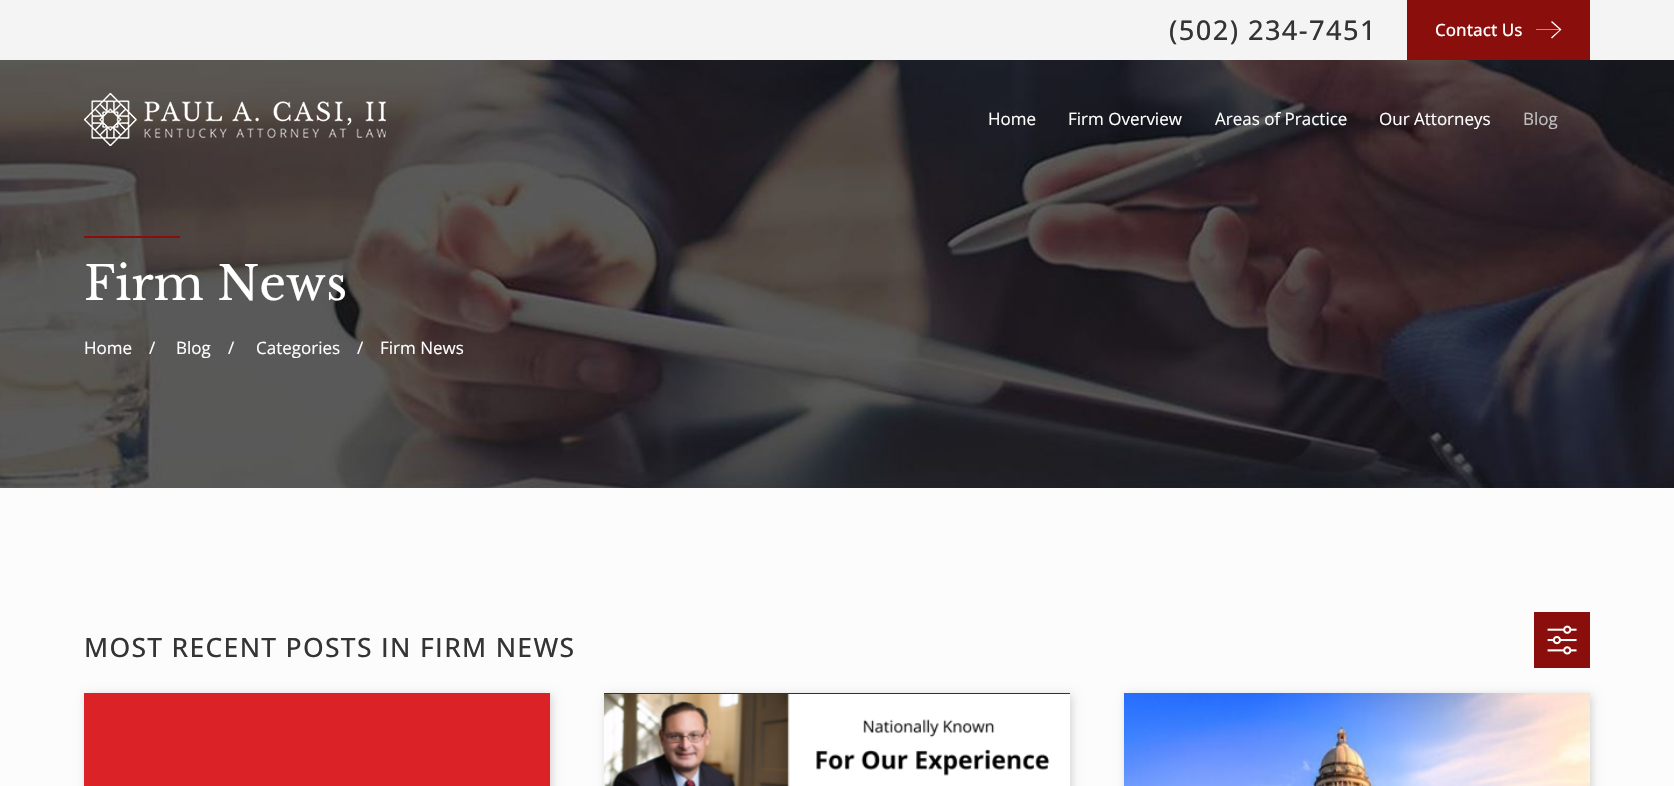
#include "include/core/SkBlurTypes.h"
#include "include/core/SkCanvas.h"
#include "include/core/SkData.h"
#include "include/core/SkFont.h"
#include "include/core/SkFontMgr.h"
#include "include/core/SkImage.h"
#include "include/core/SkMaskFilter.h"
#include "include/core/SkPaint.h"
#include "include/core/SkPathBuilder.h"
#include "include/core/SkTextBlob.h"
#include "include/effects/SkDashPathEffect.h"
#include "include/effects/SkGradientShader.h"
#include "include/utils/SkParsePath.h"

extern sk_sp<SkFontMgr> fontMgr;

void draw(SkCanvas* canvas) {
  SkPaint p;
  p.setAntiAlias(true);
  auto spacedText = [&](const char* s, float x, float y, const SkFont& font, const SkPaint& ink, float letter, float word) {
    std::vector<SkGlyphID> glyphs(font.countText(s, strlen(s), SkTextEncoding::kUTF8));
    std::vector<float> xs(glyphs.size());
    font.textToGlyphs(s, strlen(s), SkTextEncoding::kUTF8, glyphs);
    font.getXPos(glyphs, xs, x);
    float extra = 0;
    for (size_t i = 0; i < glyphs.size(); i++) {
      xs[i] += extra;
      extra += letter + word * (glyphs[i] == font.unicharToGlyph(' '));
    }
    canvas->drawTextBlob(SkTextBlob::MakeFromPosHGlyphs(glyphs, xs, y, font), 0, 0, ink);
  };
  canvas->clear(SkColorSetRGB(252, 252, 252));
  p.setColor(SkColorSetRGB(244, 244, 244));
  canvas->drawRect(SkRect::MakeLTRB(0, 0, 1674, 60), p);
  p.setColor(SkColorSetRGB(137, 14, 12));
  canvas->drawRect(SkRect::MakeLTRB(1407, 0, 1590, 60), p);
  p.setColor(SK_ColorWHITE);
  canvas->drawPath(SkPathBuilder().moveTo(1551, 37.5f).lineTo(1552, 38.5f).lineTo(1561.5f, 29.5f).lineTo(1552, 21).lineTo(1551, 22).lineTo(1559.5f, 29.5f).lineTo(1536, 29.5f).lineTo(1536, 30).lineTo(1559.5f, 30).close().detach(), p);
  canvas->drawImageRect(SkImages::DeferredFromEncodedData(SkData::MakeFromFileName("images/2.png")), SkRect::MakeLTRB(0, 60, 1674, 488), SkSamplingOptions());
  canvas->drawImageRect(SkImages::DeferredFromEncodedData(SkData::MakeFromFileName("images/1.png")), SkRect::MakeLTRB(84, 93, 386, 146), SkSamplingOptions());
  p.setColor(SkColorSetRGB(137, 14, 12));
  canvas->drawRect(SkRect::MakeLTRB(84, 236, 180, 238), p);
  canvas->drawRect(SkRect::MakeLTRB(1534, 612, 1590, 668), p);
  canvas->drawImageRect(SkImages::DeferredFromEncodedData(SkData::MakeFromFileName("images/3.png")), SkRect::MakeLTRB(1547, 625, 1577, 655), SkSamplingOptions());
  p.setColor(SkColorSetARGB(41, 0, 0, 0));
  p.setMaskFilter(SkMaskFilter::MakeBlur(kNormal_SkBlurStyle, 4.5f));
  canvas->drawRect(SkRect::MakeLTRB(86, 695, 552, 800), p);
  p.setMaskFilter(nullptr);
  p.setColor(SkColorSetRGB(219, 34, 39));
  canvas->drawRect(SkRect::MakeLTRB(84, 693, 550, 786), p);
  p.setColor(SkColorSetARGB(41, 0, 0, 0));
  p.setMaskFilter(SkMaskFilter::MakeBlur(kNormal_SkBlurStyle, 4.5f));
  canvas->drawRect(SkRect::MakeLTRB(606, 695, 1072, 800), p);
  p.setMaskFilter(nullptr);
  p.setColor(SkColorSetRGB(137, 14, 12));
  canvas->drawRect(SkRect::MakeLTRB(604, 693, 1070, 694), p);
  canvas->drawImageRect(SkImages::DeferredFromEncodedData(SkData::MakeFromFileName("images/4.png")), SkRect::MakeLTRB(604, 694, 1070, 786), SkSamplingOptions());
  p.setColor(SkColorSetARGB(41, 0, 0, 0));
  p.setMaskFilter(SkMaskFilter::MakeBlur(kNormal_SkBlurStyle, 4.5f));
  canvas->drawRect(SkRect::MakeLTRB(1126, 695, 1592, 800), p);
  p.setMaskFilter(nullptr);
  canvas->drawImageRect(SkImages::DeferredFromEncodedData(SkData::MakeFromFileName("images/5.png")), SkRect::MakeLTRB(1124, 693, 1590, 786), SkSamplingOptions());
  SkFont font1(fontMgr->matchFamilyStyle("Open Sans", SkFontStyle(500, SkFontStyle::kNormal_Width, SkFontStyle::kUpright_Slant)), 27.25f);
  font1.setSubpixel(true);
  p.setColor(SkColorSetRGB(52, 52, 52));
  spacedText("(502) 234-7451", 1169, 40, font1, p, 1.4f, 0);
  SkFont font2(fontMgr->matchFamilyStyle("Open Sans", SkFontStyle(500, SkFontStyle::kNormal_Width, SkFontStyle::kUpright_Slant)), 17);
  font2.setSubpixel(true);
  p.setColor(SK_ColorWHITE);
  canvas->drawString("Contact Us", 1435, 36, font2, p);
  SkFont font3(fontMgr->matchFamilyStyle("Open Sans", SkFontStyle::Normal()), 17);
  font3.setSubpixel(true);
  canvas->drawString("Home", 988, 125, font3, p);
  canvas->drawString("Firm Overview", 1068, 125, font3, p);
  canvas->drawString("Areas of Practice", 1215, 125, font3, p);
  canvas->drawString("Our Attorneys", 1379, 125, font3, p);
  p.setColor(SkColorSetRGB(193, 193, 193));
  canvas->drawString("Blog", 1523, 125, font3, p);
  SkFont font4(fontMgr->matchFamilyStyle("Libre Baskerville", SkFontStyle::Normal()), 46.75f);
  font4.setSubpixel(true);
  p.setColor(SK_ColorWHITE);
  canvas->drawString("Firm News", 84, 300, font4, p);
  canvas->drawString("Home", 84, 354, font3, p);
  canvas->drawString("/", 149, 354, font3, p);
  canvas->drawString("Blog", 176, 354, font3, p);
  canvas->drawString("/", 228, 354, font3, p);
  canvas->drawString("Categories", 256, 354, font3, p);
  canvas->drawString("/", 357, 354, font3, p);
  canvas->drawString("Firm News", 380, 354, font3, p);
  SkFont font5(fontMgr->matchFamilyStyle("Open Sans", SkFontStyle(500, SkFontStyle::kNormal_Width, SkFontStyle::kUpright_Slant)), 26.5f);
  font5.setSubpixel(true);
  p.setColor(SkColorSetRGB(52, 52, 52));
  spacedText("MOST RECENT POSTS IN FIRM NEWS", 84, 657, font5, p, 1.3f, 0);
}
